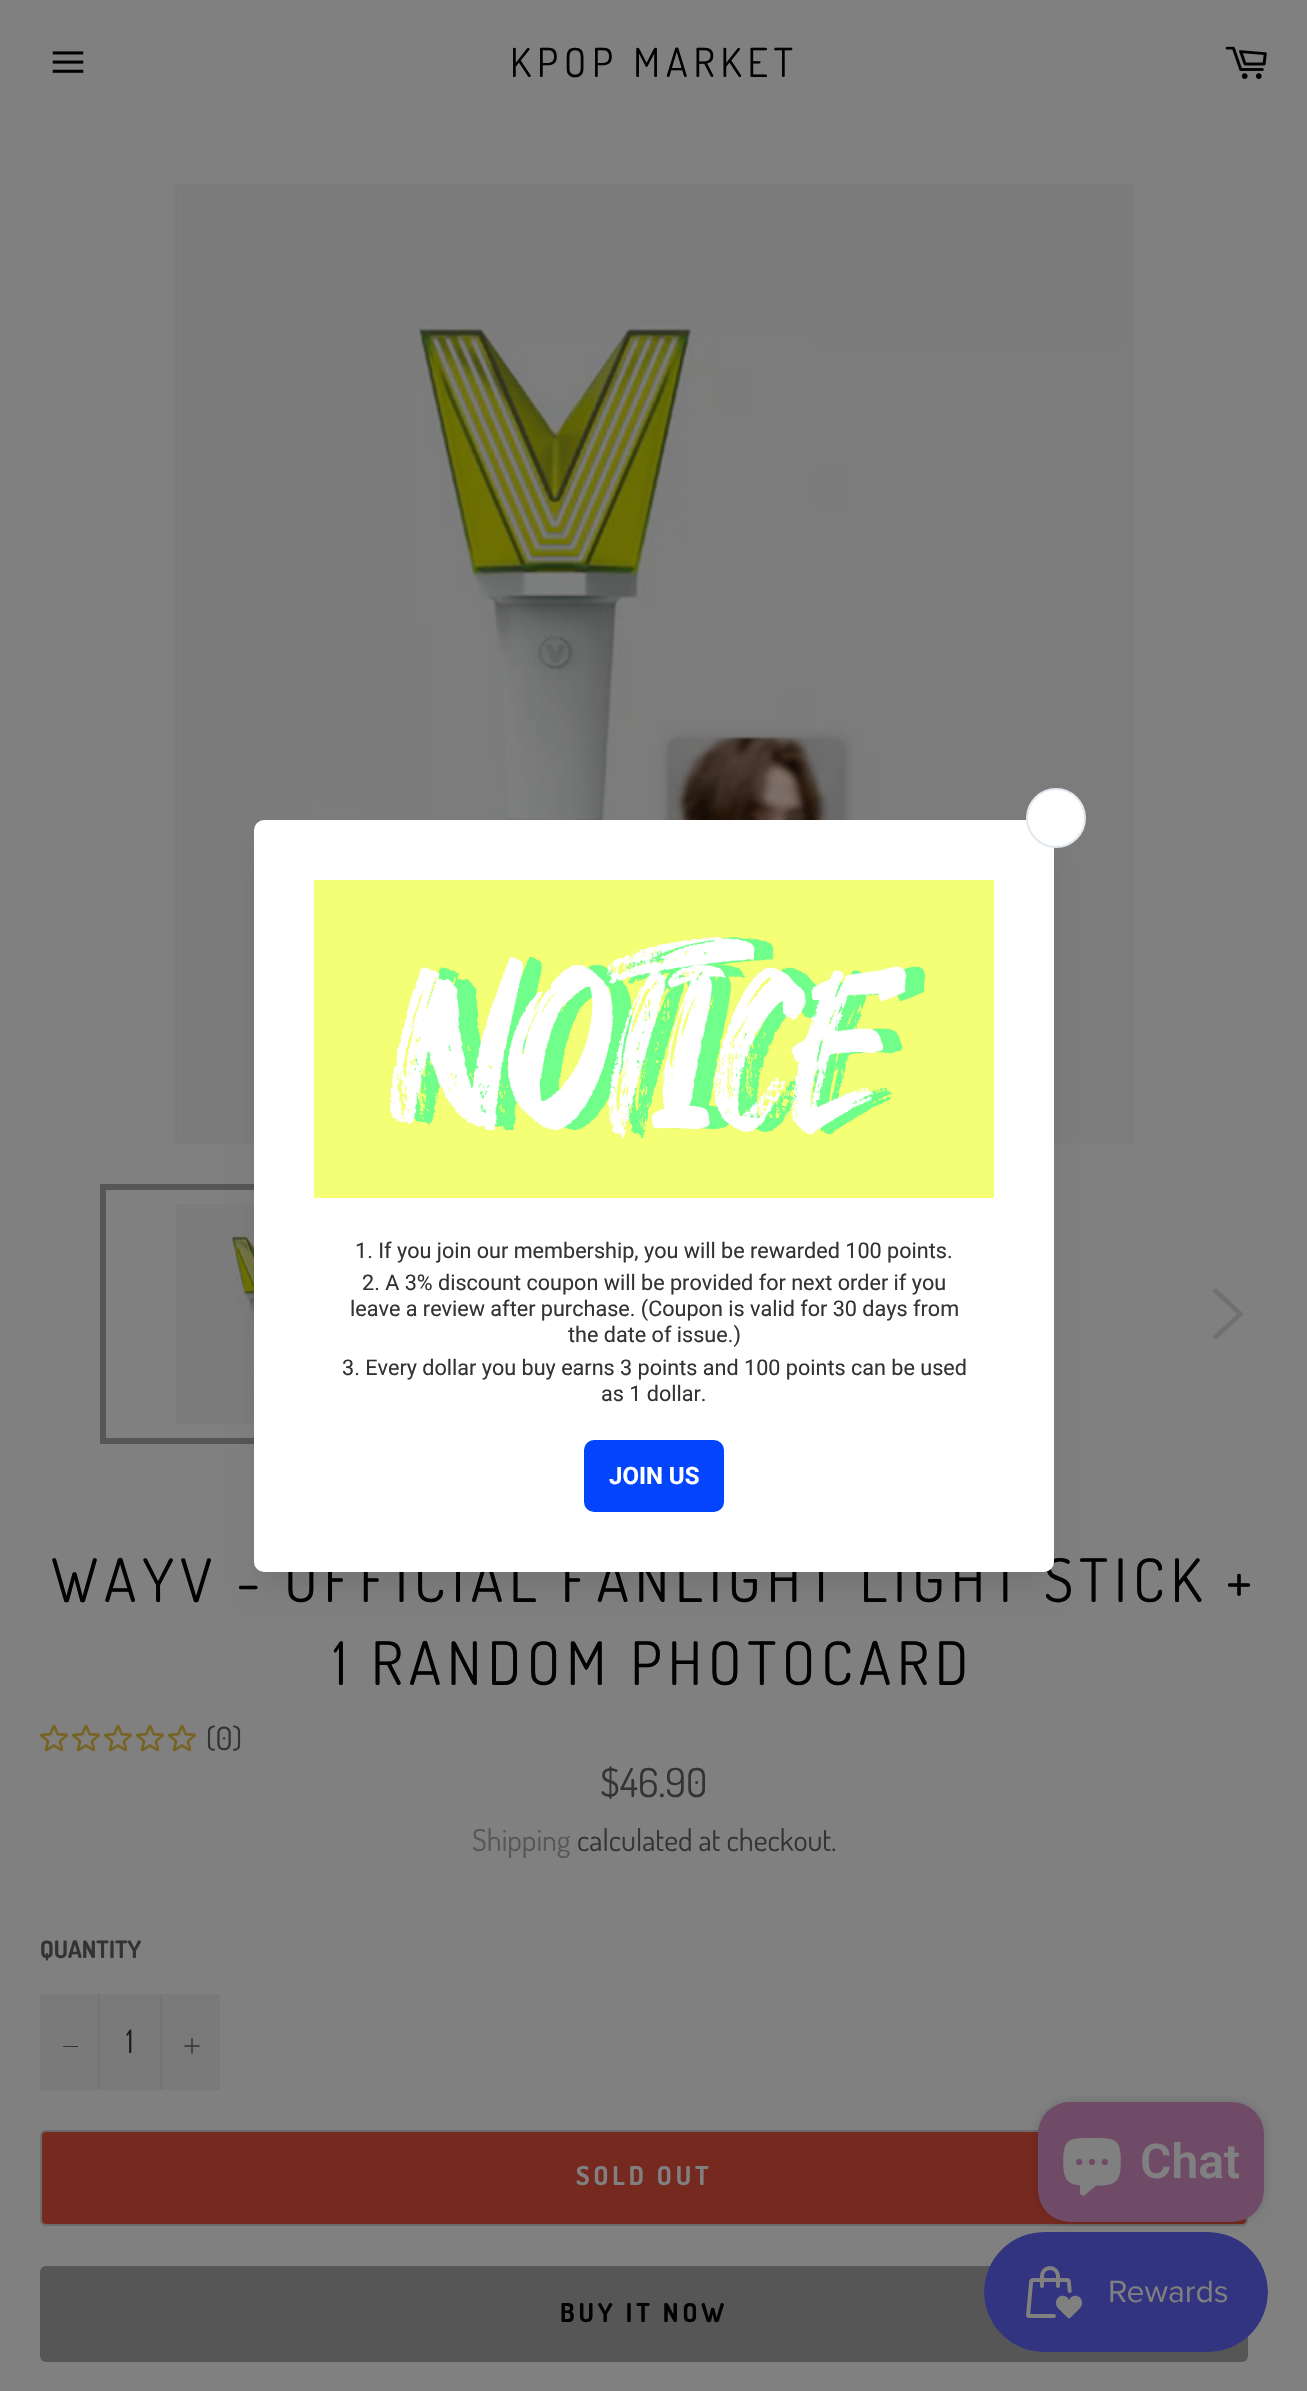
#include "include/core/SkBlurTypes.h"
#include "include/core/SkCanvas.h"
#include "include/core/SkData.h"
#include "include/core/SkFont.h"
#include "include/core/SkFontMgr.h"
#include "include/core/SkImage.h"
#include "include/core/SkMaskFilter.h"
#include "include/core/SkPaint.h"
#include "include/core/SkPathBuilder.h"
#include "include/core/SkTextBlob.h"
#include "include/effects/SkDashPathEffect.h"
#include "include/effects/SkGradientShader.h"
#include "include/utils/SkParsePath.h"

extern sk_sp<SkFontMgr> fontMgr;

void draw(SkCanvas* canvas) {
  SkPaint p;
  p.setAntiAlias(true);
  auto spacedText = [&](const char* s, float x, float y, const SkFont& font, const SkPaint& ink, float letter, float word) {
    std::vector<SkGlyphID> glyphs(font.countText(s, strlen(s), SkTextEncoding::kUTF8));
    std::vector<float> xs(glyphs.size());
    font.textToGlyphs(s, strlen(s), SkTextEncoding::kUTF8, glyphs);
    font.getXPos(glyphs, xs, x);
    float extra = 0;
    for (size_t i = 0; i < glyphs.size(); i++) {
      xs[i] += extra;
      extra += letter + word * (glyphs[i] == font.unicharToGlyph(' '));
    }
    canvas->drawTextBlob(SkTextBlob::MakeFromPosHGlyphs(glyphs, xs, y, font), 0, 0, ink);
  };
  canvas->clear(SkColorSetRGB(128, 128, 128));
  canvas->drawImageRect(SkImages::DeferredFromEncodedData(SkData::MakeFromFileName("images/1.png")), SkRect::MakeLTRB(52, 51, 84, 73), SkSamplingOptions());
  canvas->drawImageRect(SkImages::DeferredFromEncodedData(SkData::MakeFromFileName("images/2.png")), SkRect::MakeLTRB(1225, 46, 1267, 79), SkSamplingOptions());
  canvas->drawImageRect(SkImages::DeferredFromEncodedData(SkData::MakeFromFileName("images/4.png")), SkRect::MakeLTRB(174, 184, 1134, 1144), SkSamplingOptions());
  canvas->drawImageRect(SkImages::DeferredFromEncodedData(SkData::MakeFromFileName("images/5.png")), SkRect::MakeLTRB(176, 1204, 254, 1424), SkSamplingOptions());
  p.setStyle(SkPaint::kStroke_Style);
  p.setStrokeWidth(6);
  p.setColor(SkColorSetRGB(86, 86, 86));
  canvas->drawRect(SkRect::MakeLTRB(103, 1187, 467, 1441), p);
  p.setStyle(SkPaint::kFill_Style);
  p.setColor(SkColorSetARGB(26, 0, 0, 0));
  p.setMaskFilter(SkMaskFilter::MakeBlur(kNormal_SkBlurStyle, 15));
  canvas->drawRoundRect(SkRect::MakeLTRB(260, 846, 1048, 1586), 4, 4, p);
  p.setMaskFilter(nullptr);
  canvas->save();
  canvas->clipRect(SkRect::MakeLTRB(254, 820, 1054, 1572));
  p.setColor(SkColorSetARGB(31, 0, 0, 0));
  p.setMaskFilter(SkMaskFilter::MakeBlur(kNormal_SkBlurStyle, 20));
  canvas->drawRoundRect(SkRect::MakeLTRB(260, 826, 1048, 1566), 4, 4, p);
  p.setMaskFilter(nullptr);
  canvas->restore();
  p.setColor(SkColorSetRGB(112, 112, 112));
  canvas->drawPath(SkPathBuilder().moveTo(1212, 1291).lineTo(1216, 1288).lineTo(1244, 1314).lineTo(1216, 1340).lineTo(1212, 1337).lineTo(1237, 1314).close().detach(), p);
  canvas->drawImageRect(SkImages::DeferredFromEncodedData(SkData::MakeFromFileName("images/6.png")), SkRect::MakeLTRB(40, 1724, 68, 1752), SkSamplingOptions());
  canvas->drawImageRect(SkImages::DeferredFromEncodedData(SkData::MakeFromFileName("images/6.png")), SkRect::MakeLTRB(72, 1724, 100, 1752), SkSamplingOptions());
  canvas->drawImageRect(SkImages::DeferredFromEncodedData(SkData::MakeFromFileName("images/6.png")), SkRect::MakeLTRB(104, 1724, 132, 1752), SkSamplingOptions());
  canvas->drawImageRect(SkImages::DeferredFromEncodedData(SkData::MakeFromFileName("images/6.png")), SkRect::MakeLTRB(136, 1724, 164, 1752), SkSamplingOptions());
  canvas->drawImageRect(SkImages::DeferredFromEncodedData(SkData::MakeFromFileName("images/6.png")), SkRect::MakeLTRB(168, 1724, 196, 1752), SkSamplingOptions());
  p.setColor(SkColorSetRGB(122, 122, 122));
  canvas->drawRect(SkRect::MakeLTRB(40, 1994, 220, 2090), p);
  p.setColor(SkColorSetRGB(116, 116, 116));
  canvas->drawRect(SkRect::MakeLTRB(98, 1994, 100, 2090), p);
  p.setColor(SkColorSetRGB(51, 51, 51));
  canvas->drawRect(SkRect::MakeLTRB(63, 2046, 78, 2047), p);
  p.setColor(SkColorSetRGB(116, 116, 116));
  canvas->drawRect(SkRect::MakeLTRB(160, 1994, 162, 2090), p);
  canvas->drawImageRect(SkImages::DeferredFromEncodedData(SkData::MakeFromFileName("images/7.png")), SkRect::MakeLTRB(184, 2038, 200, 2054), SkSamplingOptions());
  p.setColor(SkColorSetRGB(118, 41, 31));
  canvas->drawRoundRect(SkRect::MakeLTRB(41, 2131, 1247, 2225), 5, 5, p);
  p.setStyle(SkPaint::kStroke_Style);
  p.setStrokeWidth(2);
  p.setColor(SkColorSetRGB(107, 107, 107));
  canvas->drawRoundRect(SkRect::MakeLTRB(41, 2131, 1247, 2225), 5, 5, p);
  p.setStyle(SkPaint::kFill_Style);
  p.setColor(SkColorSetRGB(86, 86, 86));
  canvas->drawRoundRect(SkRect::MakeLTRB(40, 2266, 1248, 2362), 6, 6, p);
  p.setColor(SkColorSetARGB(38, 0, 0, 0));
  p.setMaskFilter(SkMaskFilter::MakeBlur(kNormal_SkBlurStyle, 5));
  canvas->drawRoundRect(SkRect::MakeLTRB(1038, 2102, 1264, 2222), 32, 32, p);
  p.setMaskFilter(nullptr);
  p.setColor(SkColorSetRGB(111, 75, 104));
  canvas->drawRoundRect(SkRect::MakeLTRB(1038, 2102, 1264, 2222), 32, 32, p);
  canvas->drawImageRect(SkImages::DeferredFromEncodedData(SkData::MakeFromFileName("images/8.png")), SkRect::MakeLTRB(1063, 2138, 1121, 2196), SkSamplingOptions());
  canvas->drawImageRect(SkImages::DeferredFromEncodedData(SkData::MakeFromFileName("images/9.png")), SkRect::MakeLTRB(984, 2232, 1268, 2352), SkSamplingOptions());
  SkFont font1(fontMgr->matchFamilyStyle("Dosis", SkFontStyle::Normal()), 40);
  font1.setSubpixel(true);
  p.setColor(SkColorSetRGB(2, 2, 2));
  spacedText("KPOP MARKET", 510, 77, font1, p, 6, 0);
  SkFont font2(fontMgr->matchFamilyStyle("Dosis", SkFontStyle::Normal()), 60);
  font2.setSubpixel(true);
  spacedText("WAYV - OFFICIAL FANLIGHT LIGHT STICK +", 51, 1602, font2, p, 6, 0);
  p.setColor(SK_ColorWHITE);
  canvas->drawRoundRect(SkRect::MakeLTRB(254, 820, 1054, 1572), 10, 10, p);
  canvas->drawCircle(1056, 818, 29, p);
  p.setStyle(SkPaint::kStroke_Style);
  p.setColor(SkColorSetRGB(226, 232, 240));
  canvas->drawCircle(1056, 818, 29, p);
  p.setStyle(SkPaint::kFill_Style);
  p.setColor(SkColorSetRGB(3, 69, 252));
  canvas->drawRoundRect(SkRect::MakeLTRB(584, 1440, 724, 1512), 10, 10, p);
  SkFont font3(fontMgr->matchFamilyStyle("Roboto", SkFontStyle::Bold()), 24);
  font3.setSubpixel(true);
  p.setColor(SK_ColorWHITE);
  canvas->drawString("JOIN US", 609, 1484, font3, p);
  SkFont font4(fontMgr->matchFamilyStyle("Roboto", SkFontStyle::Normal()), 21.6f);
  font4.setSubpixel(true);
  p.setColor(SkColorSetRGB(51, 51, 51));
  canvas->drawString("as 1 dollar.", 601, 1401, font4, p);
  canvas->drawString("3. Every dollar you buy earns 3 points and 100 points can be used", 342, 1375, font4, p);
  canvas->drawString("the date of issue.)", 568, 1342, font4, p);
  canvas->drawString("leave a review after purchase. (Coupon is valid for 30 days from", 350, 1316, font4, p);
  canvas->drawString("2. A 3% discount coupon will be provided for next order if you", 362, 1290, font4, p);
  canvas->drawString("1. If you join our membership, you will be rewarded 100 points.", 355, 1258, font4, p);
  canvas->drawImageRect(SkImages::DeferredFromEncodedData(SkData::MakeFromFileName("images/3.png")), SkRect::MakeLTRB(314, 880, 994, 1198), SkSamplingOptions());
  p.setColor(SkColorSetRGB(2, 2, 2));
  spacedText("1 RANDOM PHOTOCARD", 333, 1685, font2, p, 6, 0);
  SkFont font5(fontMgr->matchFamilyStyle("Dosis", SkFontStyle::Normal()), 32);
  font5.setSubpixel(true);
  p.setColor(SkColorSetRGB(51, 51, 51));
  canvas->drawString("(0)", 206, 1750, font5, p);
  canvas->drawString("$46.90", 600, 1797, font1, p);
  SkFont font6(fontMgr->matchFamilyStyle("Dosis", SkFontStyle::Normal()), 30);
  font6.setSubpixel(true);
  p.setColor(SkColorSetRGB(86, 86, 86));
  canvas->drawString("Shipping", 472, 1851, font6, p);
  p.setColor(SkColorSetRGB(51, 51, 51));
  canvas->drawString("calculated at checkout.", 577, 1851, font6, p);
  SkFont font7(fontMgr->matchFamilyStyle("Dosis", SkFontStyle::Bold()), 24);
  font7.setSubpixel(true);
  canvas->drawString("QUANTITY", 40, 1958, font7, p);
  p.setColor(SkColorSetRGB(26, 26, 26));
  canvas->drawString("1", 126, 2053, font5, p);
  SkFont font8(fontMgr->matchFamilyStyle("Dosis", SkFontStyle::Bold()), 26);
  font8.setSubpixel(true);
  p.setColor(SkColorSetRGB(128, 128, 128));
  spacedText("SOLD OUT", 576, 2185, font8, p, 3.9f, 0);
  p.setColor(SkColorSetRGB(2, 2, 2));
  spacedText("BUY IT NOW", 560, 2322, font8, p, 3.9f, 0);
  SkFont font9(fontMgr->matchFamilyStyle("Roboto", SkFontStyle(600, SkFontStyle::kNormal_Width, SkFontStyle::kUpright_Slant)), 48);
  font9.setSubpixel(true);
  p.setColor(SkColorSetRGB(128, 128, 128));
  canvas->drawString("Chat", 1140, 2178, font9, p);
}
